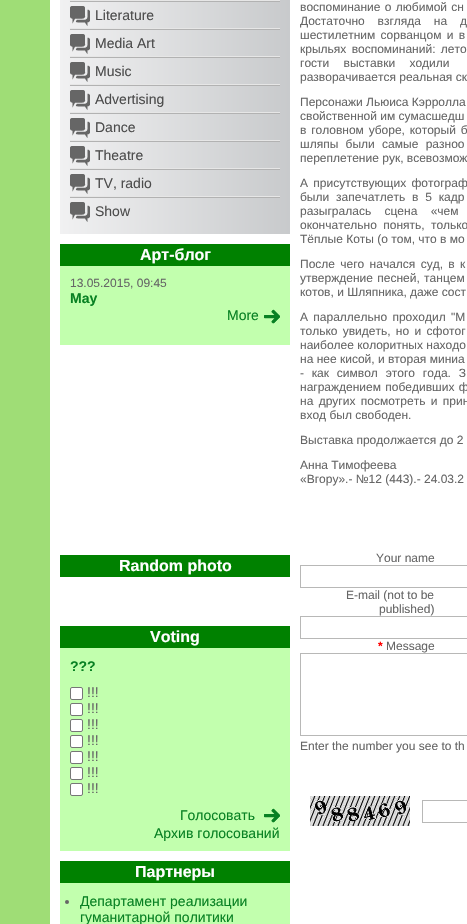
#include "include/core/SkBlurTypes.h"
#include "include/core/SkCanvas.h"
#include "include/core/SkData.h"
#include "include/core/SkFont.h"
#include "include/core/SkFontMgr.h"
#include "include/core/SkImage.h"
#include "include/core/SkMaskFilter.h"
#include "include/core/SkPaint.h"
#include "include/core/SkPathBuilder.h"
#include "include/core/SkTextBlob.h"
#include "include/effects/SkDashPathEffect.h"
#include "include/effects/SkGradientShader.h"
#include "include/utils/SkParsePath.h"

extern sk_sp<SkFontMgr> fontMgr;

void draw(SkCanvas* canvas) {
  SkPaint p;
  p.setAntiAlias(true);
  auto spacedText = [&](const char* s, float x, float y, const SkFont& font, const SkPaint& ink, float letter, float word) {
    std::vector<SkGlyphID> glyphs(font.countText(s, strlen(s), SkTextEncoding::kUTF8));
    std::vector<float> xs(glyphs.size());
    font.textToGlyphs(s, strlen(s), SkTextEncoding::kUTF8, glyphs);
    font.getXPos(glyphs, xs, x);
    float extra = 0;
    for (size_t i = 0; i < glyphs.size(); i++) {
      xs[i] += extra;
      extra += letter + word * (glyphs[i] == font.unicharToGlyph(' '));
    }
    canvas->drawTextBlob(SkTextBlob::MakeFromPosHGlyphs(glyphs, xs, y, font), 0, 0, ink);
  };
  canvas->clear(SkColorSetRGB(159, 221, 118));
  p.setColor(SK_ColorWHITE);
  canvas->drawRect(SkRect::MakeLTRB(50, 0, 467, 924), p);
  canvas->drawImageRect(SkImages::DeferredFromEncodedData(SkData::MakeFromFileName("images/1.png")), SkRect::MakeLTRB(60, 0, 290, 234), SkSamplingOptions());
  p.setColor(SkColorSetRGB(178, 178, 178));
  canvas->drawRect(SkRect::MakeLTRB(70, 1, 280, 2), p);
  p.setColor(SkColorSetRGB(230, 230, 230));
  canvas->drawRect(SkRect::MakeLTRB(70, 0, 280, 1), p);
  p.setColor(SkColorSetRGB(178, 178, 178));
  canvas->drawRect(SkRect::MakeLTRB(70, 29, 280, 30), p);
  canvas->drawImageRect(SkImages::DeferredFromEncodedData(SkData::MakeFromFileName("images/2.png")), SkRect::MakeLTRB(70, 6, 90, 26), SkSamplingOptions());
  p.setColor(SkColorSetRGB(230, 230, 230));
  canvas->drawRect(SkRect::MakeLTRB(70, 28, 280, 29), p);
  p.setColor(SkColorSetRGB(178, 178, 178));
  canvas->drawRect(SkRect::MakeLTRB(70, 57, 280, 58), p);
  canvas->drawImageRect(SkImages::DeferredFromEncodedData(SkData::MakeFromFileName("images/2.png")), SkRect::MakeLTRB(70, 34, 90, 54), SkSamplingOptions());
  p.setColor(SkColorSetRGB(230, 230, 230));
  canvas->drawRect(SkRect::MakeLTRB(70, 56, 280, 57), p);
  p.setColor(SkColorSetRGB(178, 178, 178));
  canvas->drawRect(SkRect::MakeLTRB(70, 85, 280, 86), p);
  canvas->drawImageRect(SkImages::DeferredFromEncodedData(SkData::MakeFromFileName("images/2.png")), SkRect::MakeLTRB(70, 62, 90, 82), SkSamplingOptions());
  p.setColor(SkColorSetRGB(230, 230, 230));
  canvas->drawRect(SkRect::MakeLTRB(70, 84, 280, 85), p);
  p.setColor(SkColorSetRGB(178, 178, 178));
  canvas->drawRect(SkRect::MakeLTRB(70, 113, 280, 114), p);
  canvas->drawImageRect(SkImages::DeferredFromEncodedData(SkData::MakeFromFileName("images/2.png")), SkRect::MakeLTRB(70, 90, 90, 110), SkSamplingOptions());
  p.setColor(SkColorSetRGB(230, 230, 230));
  canvas->drawRect(SkRect::MakeLTRB(70, 112, 280, 113), p);
  p.setColor(SkColorSetRGB(178, 178, 178));
  canvas->drawRect(SkRect::MakeLTRB(70, 141, 280, 142), p);
  canvas->drawImageRect(SkImages::DeferredFromEncodedData(SkData::MakeFromFileName("images/2.png")), SkRect::MakeLTRB(70, 118, 90, 138), SkSamplingOptions());
  p.setColor(SkColorSetRGB(230, 230, 230));
  canvas->drawRect(SkRect::MakeLTRB(70, 140, 280, 141), p);
  p.setColor(SkColorSetRGB(178, 178, 178));
  canvas->drawRect(SkRect::MakeLTRB(70, 169, 280, 170), p);
  canvas->drawImageRect(SkImages::DeferredFromEncodedData(SkData::MakeFromFileName("images/2.png")), SkRect::MakeLTRB(70, 146, 90, 166), SkSamplingOptions());
  p.setColor(SkColorSetRGB(230, 230, 230));
  canvas->drawRect(SkRect::MakeLTRB(70, 168, 280, 169), p);
  p.setColor(SkColorSetRGB(178, 178, 178));
  canvas->drawRect(SkRect::MakeLTRB(70, 197, 280, 198), p);
  canvas->drawImageRect(SkImages::DeferredFromEncodedData(SkData::MakeFromFileName("images/2.png")), SkRect::MakeLTRB(70, 174, 90, 194), SkSamplingOptions());
  p.setColor(SkColorSetRGB(230, 230, 230));
  canvas->drawRect(SkRect::MakeLTRB(70, 196, 280, 197), p);
  canvas->drawImageRect(SkImages::DeferredFromEncodedData(SkData::MakeFromFileName("images/2.png")), SkRect::MakeLTRB(70, 202, 90, 222), SkSamplingOptions());
  p.setColor(SkColorSetRGB(0, 129, 0));
  canvas->drawRect(SkRect::MakeLTRB(60, 244, 290, 266), p);
  p.setColor(SkColorSetRGB(194, 255, 174));
  canvas->drawRect(SkRect::MakeLTRB(60, 266, 290, 345), p);
  canvas->drawImageRect(SkImages::DeferredFromEncodedData(SkData::MakeFromFileName("images/3.png")), SkRect::MakeLTRB(264, 309, 280, 324), SkSamplingOptions());
  p.setColor(SkColorSetRGB(0, 129, 0));
  canvas->drawRect(SkRect::MakeLTRB(60, 555, 290, 577), p);
  canvas->drawRect(SkRect::MakeLTRB(60, 626, 290, 648), p);
  p.setColor(SkColorSetRGB(194, 255, 174));
  canvas->drawRect(SkRect::MakeLTRB(60, 648, 290, 851), p);
  p.setColor(SK_ColorWHITE);
  canvas->drawRoundRect(SkRect::MakeLTRB(70.5f, 687.5f, 82.5f, 699.5f), 1.5f, 1.5f, p);
  p.setStyle(SkPaint::kStroke_Style);
  p.setStrokeWidth(1);
  p.setColor(SkColorSetRGB(118, 118, 118));
  canvas->drawRoundRect(SkRect::MakeLTRB(70.5f, 687.5f, 82.5f, 699.5f), 1.5f, 1.5f, p);
  p.setStyle(SkPaint::kFill_Style);
  p.setColor(SK_ColorWHITE);
  canvas->drawRoundRect(SkRect::MakeLTRB(70.5f, 703.5f, 82.5f, 715.5f), 1.5f, 1.5f, p);
  p.setStyle(SkPaint::kStroke_Style);
  p.setColor(SkColorSetRGB(118, 118, 118));
  canvas->drawRoundRect(SkRect::MakeLTRB(70.5f, 703.5f, 82.5f, 715.5f), 1.5f, 1.5f, p);
  p.setStyle(SkPaint::kFill_Style);
  p.setColor(SK_ColorWHITE);
  canvas->drawRoundRect(SkRect::MakeLTRB(70.5f, 719.5f, 82.5f, 731.5f), 1.5f, 1.5f, p);
  p.setStyle(SkPaint::kStroke_Style);
  p.setColor(SkColorSetRGB(118, 118, 118));
  canvas->drawRoundRect(SkRect::MakeLTRB(70.5f, 719.5f, 82.5f, 731.5f), 1.5f, 1.5f, p);
  p.setStyle(SkPaint::kFill_Style);
  p.setColor(SK_ColorWHITE);
  canvas->drawRoundRect(SkRect::MakeLTRB(70.5f, 735.5f, 82.5f, 747.5f), 1.5f, 1.5f, p);
  p.setStyle(SkPaint::kStroke_Style);
  p.setColor(SkColorSetRGB(118, 118, 118));
  canvas->drawRoundRect(SkRect::MakeLTRB(70.5f, 735.5f, 82.5f, 747.5f), 1.5f, 1.5f, p);
  p.setStyle(SkPaint::kFill_Style);
  p.setColor(SK_ColorWHITE);
  canvas->drawRoundRect(SkRect::MakeLTRB(70.5f, 751.5f, 82.5f, 763.5f), 1.5f, 1.5f, p);
  p.setStyle(SkPaint::kStroke_Style);
  p.setColor(SkColorSetRGB(118, 118, 118));
  canvas->drawRoundRect(SkRect::MakeLTRB(70.5f, 751.5f, 82.5f, 763.5f), 1.5f, 1.5f, p);
  p.setStyle(SkPaint::kFill_Style);
  p.setColor(SK_ColorWHITE);
  canvas->drawRoundRect(SkRect::MakeLTRB(70.5f, 767.5f, 82.5f, 779.5f), 1.5f, 1.5f, p);
  p.setStyle(SkPaint::kStroke_Style);
  p.setColor(SkColorSetRGB(118, 118, 118));
  canvas->drawRoundRect(SkRect::MakeLTRB(70.5f, 767.5f, 82.5f, 779.5f), 1.5f, 1.5f, p);
  p.setStyle(SkPaint::kFill_Style);
  p.setColor(SK_ColorWHITE);
  canvas->drawRoundRect(SkRect::MakeLTRB(70.5f, 783.5f, 82.5f, 795.5f), 1.5f, 1.5f, p);
  p.setStyle(SkPaint::kStroke_Style);
  p.setColor(SkColorSetRGB(118, 118, 118));
  canvas->drawRoundRect(SkRect::MakeLTRB(70.5f, 783.5f, 82.5f, 795.5f), 1.5f, 1.5f, p);
  canvas->drawImageRect(SkImages::DeferredFromEncodedData(SkData::MakeFromFileName("images/3.png")), SkRect::MakeLTRB(264, 808, 280, 823), SkSamplingOptions());
  p.setStyle(SkPaint::kFill_Style);
  p.setColor(SkColorSetRGB(0, 129, 0));
  canvas->drawRect(SkRect::MakeLTRB(60, 861, 290, 883), p);
  p.setColor(SkColorSetRGB(194, 255, 174));
  canvas->drawRect(SkRect::MakeLTRB(60, 883, 290, 924), p);
  p.setColor(SkColorSetRGB(102, 102, 102));
  canvas->drawCircle(67, 902, 2, p);
  p.setStyle(SkPaint::kStroke_Style);
  p.setColor(SkColorSetRGB(184, 184, 183));
  canvas->drawRect(SkRect::MakeLTRB(300.5f, 565.5f, 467.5f, 587.5f), p);
  canvas->drawRect(SkRect::MakeLTRB(300.5f, 616.5f, 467.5f, 638.5f), p);
  canvas->drawRect(SkRect::MakeLTRB(300.5f, 653.5f, 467.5f, 735.5f), p);
  canvas->drawImageRect(SkImages::DeferredFromEncodedData(SkData::MakeFromFileName("images/4.png")), SkRect::MakeLTRB(310, 796, 410, 826), SkSamplingOptions());
  canvas->drawRect(SkRect::MakeLTRB(422.5f, 800.5f, 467.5f, 822.5f), p);
  SkFont font1(fontMgr->matchFamilyStyle("Liberation Sans", SkFontStyle::Normal()), 14);
  font1.setSubpixel(true);
  p.setStyle(SkPaint::kFill_Style);
  p.setColor(SkColorSetRGB(76, 76, 76));
  canvas->drawString("Literature", 95, 20, font1, p);
  canvas->drawString("Media Art", 95, 48, font1, p);
  canvas->drawString("Music", 95, 76, font1, p);
  canvas->drawString("Advertising", 95, 104, font1, p);
  canvas->drawString("Dance", 95, 132, font1, p);
  canvas->drawString("Theatre", 95, 160, font1, p);
  canvas->drawString("TV, radio", 95, 188, font1, p);
  canvas->drawString("Show", 95, 216, font1, p);
  SkFont font2(fontMgr->matchFamilyStyle("Liberation Sans", SkFontStyle::Bold()), 16);
  font2.setSubpixel(true);
  p.setColor(SK_ColorWHITE);
  canvas->drawString("Арт-блог", 140, 260, font2, p);
  SkFont font3(fontMgr->matchFamilyStyle("Liberation Sans", SkFontStyle::Normal()), 12);
  font3.setSubpixel(true);
  p.setColor(SkColorSetRGB(102, 102, 102));
  canvas->drawString("13.05.2015, 09:45", 70, 287, font3, p);
  SkFont font4(fontMgr->matchFamilyStyle("Liberation Sans", SkFontStyle::Bold()), 14);
  font4.setSubpixel(true);
  p.setColor(SkColorSetRGB(8, 129, 35));
  canvas->drawString("May", 70, 303, font4, p);
  canvas->drawString("More", 227, 320, font1, p);
  p.setColor(SK_ColorWHITE);
  canvas->drawString("Random photo", 119, 571, font2, p);
  canvas->drawString("Voting", 150, 642, font2, p);
  p.setColor(SkColorSetRGB(8, 129, 35));
  canvas->drawString("?\077?", 70, 671, font4, p);
  p.setColor(SkColorSetRGB(102, 102, 102));
  canvas->drawString("!!!", 87, 697, font1, p);
  canvas->drawString("!!!", 87, 713, font1, p);
  canvas->drawString("!!!", 87, 729, font1, p);
  canvas->drawString("!!!", 87, 745, font1, p);
  canvas->drawString("!!!", 87, 761, font1, p);
  canvas->drawString("!!!", 87, 777, font1, p);
  canvas->drawString("!!!", 87, 793, font1, p);
  p.setColor(SkColorSetRGB(8, 129, 35));
  canvas->drawString("Голосовать", 180, 820, font1, p);
  canvas->drawString("Архив голосований", 154, 838, font1, p);
  p.setColor(SK_ColorWHITE);
  canvas->drawString("Партнеры", 135, 877, font2, p);
  p.setColor(SkColorSetRGB(8, 129, 35));
  canvas->drawString("Департамент реализации", 80, 906, font1, p);
  canvas->drawString("гуманитарной политики", 80, 922, font1, p);
  p.setColor(SkColorSetRGB(102, 102, 102));
  spacedText("воспоминание о любимой сн", 300, 11, font3, p, 0, 1);
  spacedText("Достаточно взгляда на д", 300, 25, font3, p, 0, 9.5f);
  spacedText("шестилетним сорванцом и в", 300, 39, font3, p, 0, 2);
  spacedText("крыльях воспоминаний: лето", 300, 53, font3, p, 0, 2);
  spacedText("гости выставки ходили", 300, 67, font3, p, 0, 11);
  canvas->drawString("разворачивается реальная ск", 300, 81, font3, p);
  canvas->drawString("Персонажи Льюиса Кэрролла", 300, 106, font3, p);
  canvas->drawString("свойственной им сумасшедш", 300, 120, font3, p);
  spacedText("в головном уборе, который б", 300, 134, font3, p, 0, 1.5f);
  spacedText("шляпы были самые разноо", 300, 148, font3, p, 0, 4);
  canvas->drawString("переплетение рук, всевозмож", 300, 162, font3, p);
  spacedText("А присутствующих фотограф", 300, 187, font3, p, 0, 2);
  spacedText("были запечатлеть в 5 кадр", 300, 201, font3, p, 0, 3.5f);
  spacedText("разыгралась сцена «чем", 300, 215, font3, p, 0, 10);
  spacedText("окончательно понять, только", 300, 229, font3, p, 0, 3);
  canvas->drawString("Тёплые Коты (о том, что в мо", 300, 243, font3, p);
  spacedText("После чего начался суд, в к", 300, 268, font3, p, 0, 2);
  spacedText("утверждение песней, танцем", 300, 282, font3, p, 0, 1);
  canvas->drawString("котов, и Шляпника, даже сост", 300, 296, font3, p);
  spacedText("А параллельно проходил \"М", 300, 321, font3, p, 0, 2);
  spacedText("только увидеть, но и сфотог", 300, 335, font3, p, 0, 2);
  canvas->drawString("наиболее колоритных находо", 300, 349, font3, p);
  canvas->drawString("на нее кисой, и вторая миниа", 300, 363, font3, p);
  spacedText("- как символ этого года. З", 300, 377, font3, p, 0, 4.5f);
  spacedText("награждением победивших ф", 300, 391, font3, p, 0, 1);
  spacedText("на других посмотреть и прин", 300, 405, font3, p, 0, 2);
  canvas->drawString("вход был свободен.", 300, 419, font3, p);
  canvas->drawString("Выставка продолжается до 2", 300, 444, font3, p);
  canvas->drawString("Анна Тимофеева", 300, 469, font3, p);
  canvas->drawString("«Вгору».- №12 (443).- 24.03.2", 300, 483, font3, p);
  canvas->drawString("Your name", 376, 562, font3, p);
  canvas->drawString("E-mail (not to be", 346, 599, font3, p);
  canvas->drawString("published)", 379, 613, font3, p);
  SkFont font5(fontMgr->matchFamilyStyle("Liberation Sans", SkFontStyle::Bold()), 12);
  font5.setSubpixel(true);
  p.setColor(SkColorSetRGB(255, 0, 0));
  canvas->drawString("*", 378, 650, font5, p);
  p.setColor(SkColorSetRGB(102, 102, 102));
  canvas->drawString("Message", 386, 650, font3, p);
  canvas->drawString("Enter the number you see to th", 300, 750, font3, p);
}
